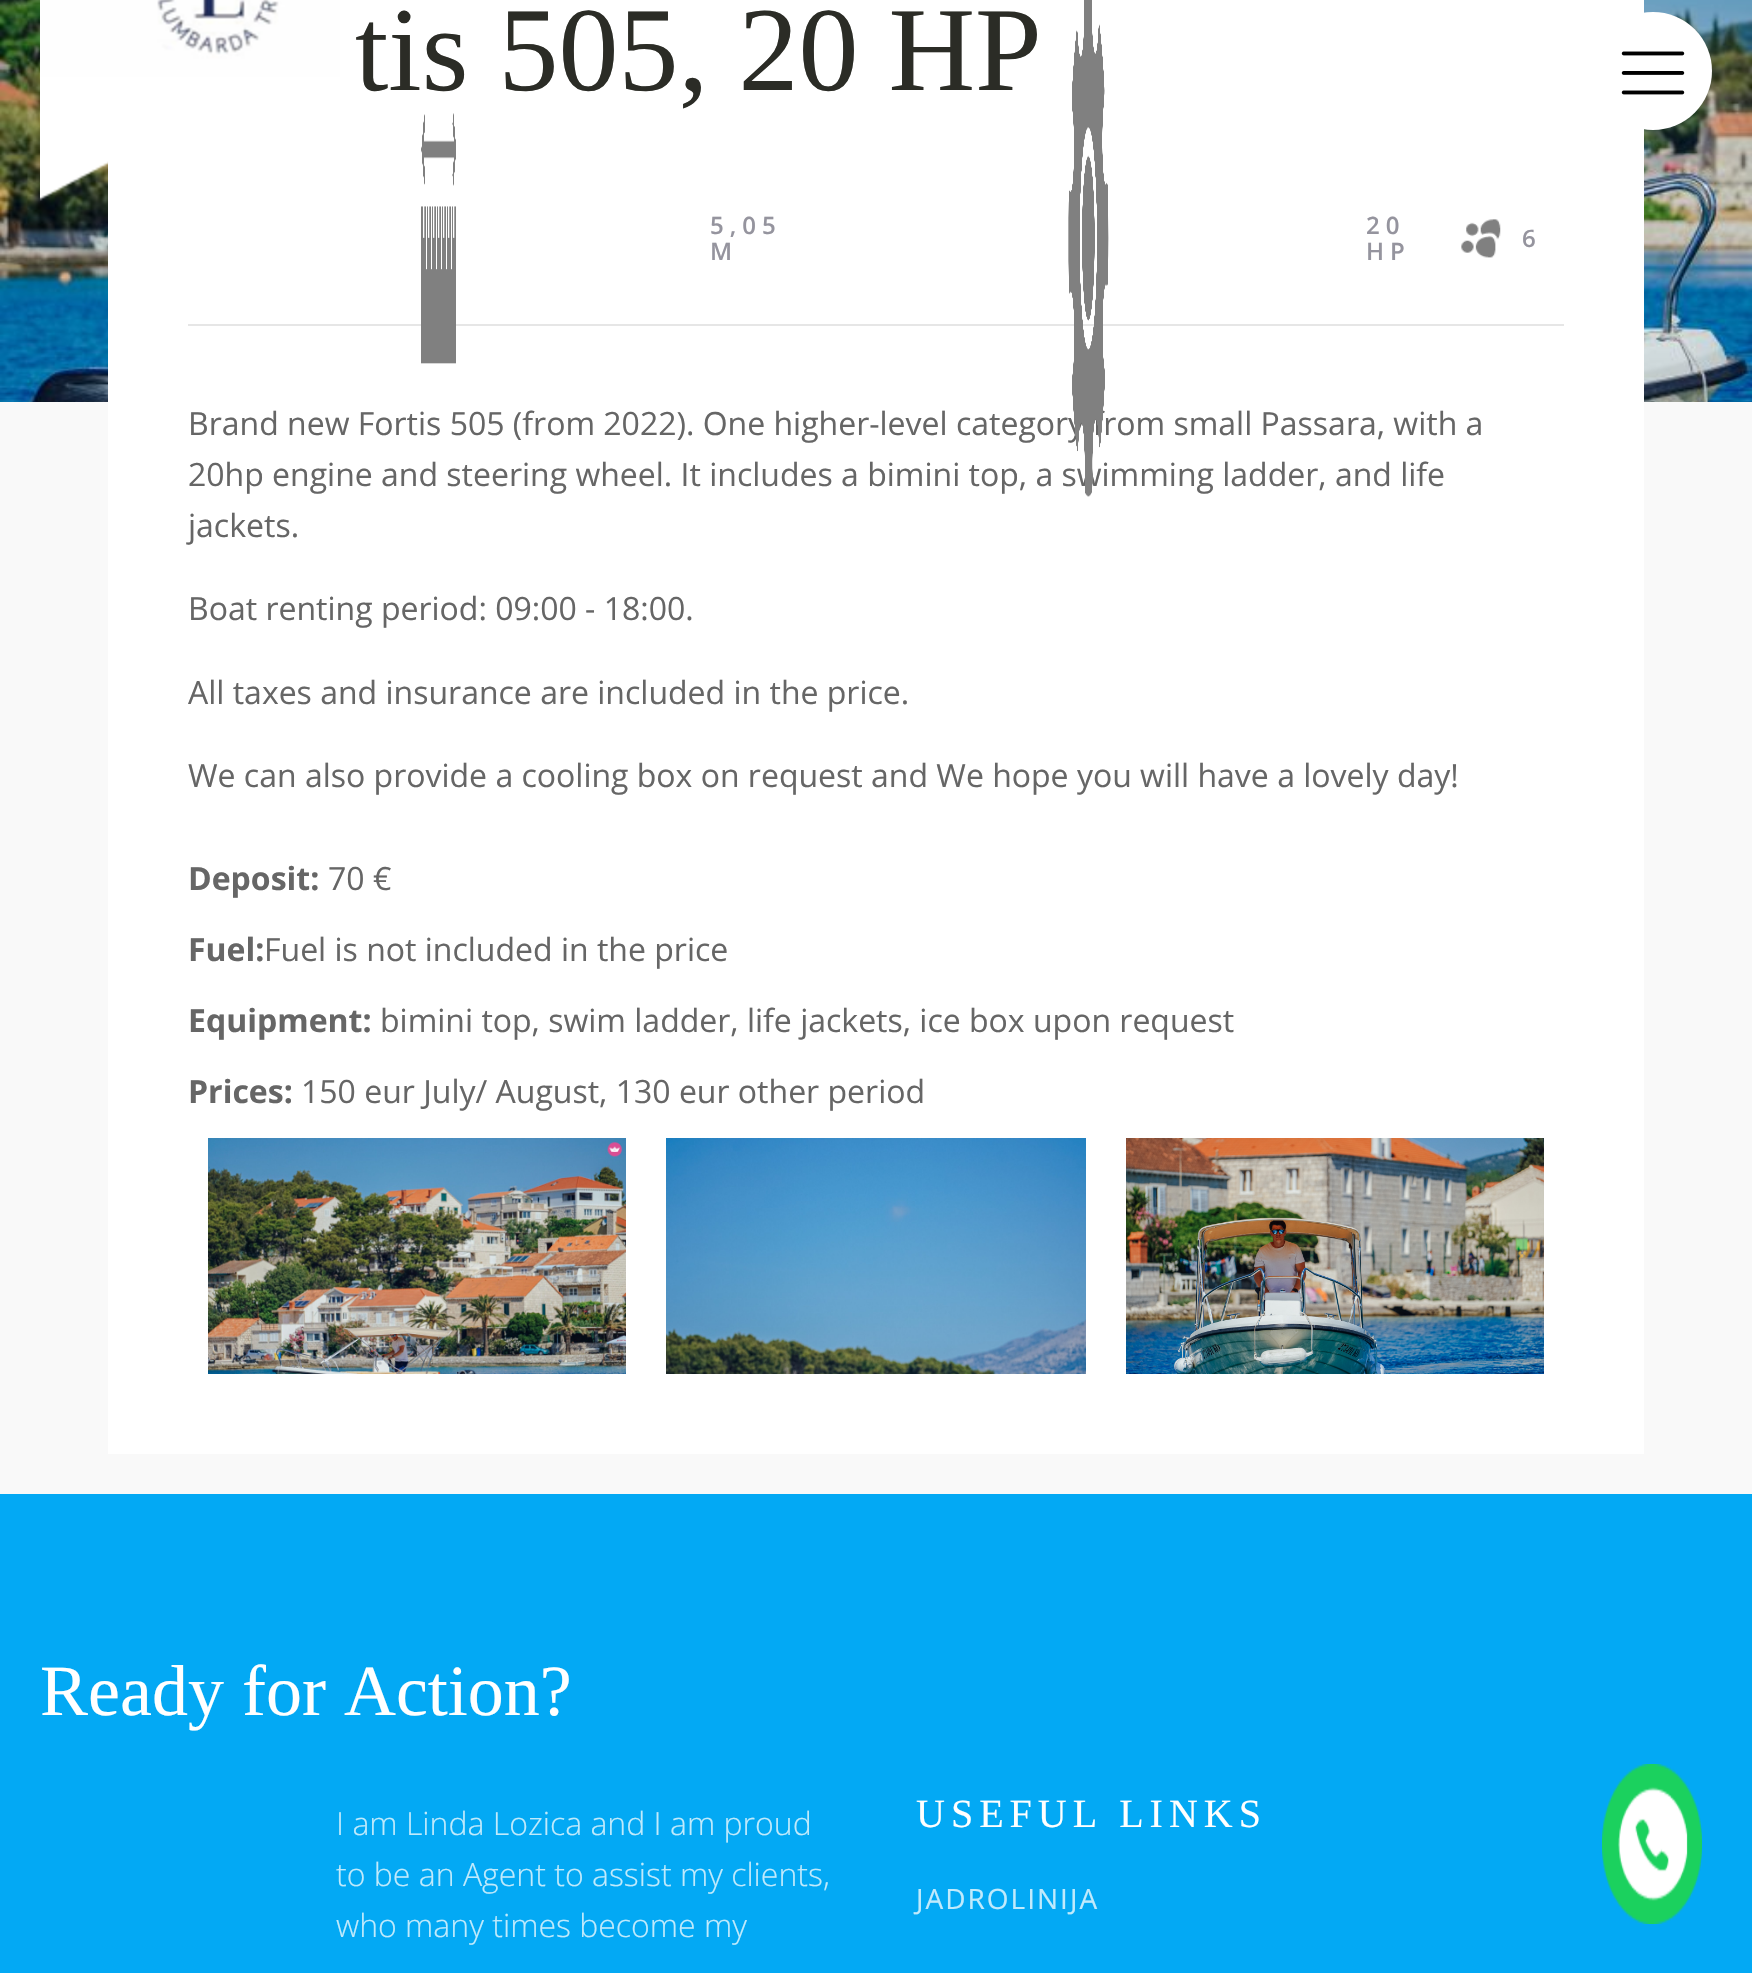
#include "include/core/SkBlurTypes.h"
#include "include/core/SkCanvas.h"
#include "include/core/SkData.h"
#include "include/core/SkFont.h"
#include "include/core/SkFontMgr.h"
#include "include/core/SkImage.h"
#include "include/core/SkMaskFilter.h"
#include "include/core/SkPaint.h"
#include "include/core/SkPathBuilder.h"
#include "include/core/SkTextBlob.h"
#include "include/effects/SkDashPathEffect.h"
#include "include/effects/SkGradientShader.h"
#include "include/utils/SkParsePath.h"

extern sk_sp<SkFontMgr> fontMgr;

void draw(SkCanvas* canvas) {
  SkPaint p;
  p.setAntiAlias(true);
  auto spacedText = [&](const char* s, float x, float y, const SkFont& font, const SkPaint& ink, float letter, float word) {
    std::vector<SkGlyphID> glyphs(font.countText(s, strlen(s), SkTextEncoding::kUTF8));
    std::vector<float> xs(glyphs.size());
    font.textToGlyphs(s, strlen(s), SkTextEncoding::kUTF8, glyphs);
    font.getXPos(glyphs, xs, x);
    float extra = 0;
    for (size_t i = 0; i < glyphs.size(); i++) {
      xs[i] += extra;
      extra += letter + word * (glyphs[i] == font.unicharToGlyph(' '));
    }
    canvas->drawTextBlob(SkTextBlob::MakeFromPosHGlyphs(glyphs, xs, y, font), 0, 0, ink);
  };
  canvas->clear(SkColorSetRGB(3, 169, 244));
  canvas->drawImageRect(SkImages::DeferredFromEncodedData(SkData::MakeFromFileName("images/3.png")), SkRect::MakeLTRB(0, 0, 1752, 402), SkSamplingOptions());
  p.setColor(SkColorSetRGB(249, 249, 249));
  canvas->drawRect(SkRect::MakeLTRB(0, 402, 1752, 1494), p);
  p.setColor(SK_ColorWHITE);
  canvas->drawRect(SkRect::MakeLTRB(108, 0, 1644, 1454), p);
  canvas->drawImageRect(SkImages::DeferredFromEncodedData(SkData::MakeFromFileName("images/1.png")), SkRect::MakeLTRB(40, 0, 340, 201), SkSamplingOptions());
  canvas->drawCircle(1653, 71, 59, p);
  canvas->drawImageRect(SkImages::DeferredFromEncodedData(SkData::MakeFromFileName("images/2.png")), SkRect::MakeLTRB(1621, 51, 1685, 95), SkSamplingOptions());
  p.setColor(SkColorSetRGB(230, 230, 230));
  canvas->drawRect(SkRect::MakeLTRB(188, 324, 1564, 326), p);
  canvas->drawImageRect(SkImages::DeferredFromEncodedData(SkData::MakeFromFileName("images/4.png")), SkRect::MakeLTRB(421, 113, 456, 364), SkSamplingOptions());
  canvas->drawImageRect(SkImages::DeferredFromEncodedData(SkData::MakeFromFileName("images/6.png")), SkRect::MakeLTRB(1461, 219, 1501, 258), SkSamplingOptions());
  canvas->drawImageRect(SkImages::DeferredFromEncodedData(SkData::MakeFromFileName("images/7.png")), SkRect::MakeLTRB(208, 1138, 626, 1374), SkSamplingOptions());
  canvas->drawImageRect(SkImages::DeferredFromEncodedData(SkData::MakeFromFileName("images/8.png")), SkRect::MakeLTRB(666, 1138, 1086, 1374), SkSamplingOptions());
  canvas->drawImageRect(SkImages::DeferredFromEncodedData(SkData::MakeFromFileName("images/9.png")), SkRect::MakeLTRB(1126, 1138, 1544, 1374), SkSamplingOptions());
  canvas->drawImageRect(SkImages::DeferredFromEncodedData(SkData::MakeFromFileName("images/10.png")), SkRect::MakeLTRB(1602, 1764, 1702, 1924), SkSamplingOptions());
  SkFont font1(fontMgr->matchFamilyStyle("Liberation Serif", SkFontStyle::Normal()), 120);
  font1.setSubpixel(true);
  p.setColor(SkColorSetRGB(43, 44, 38));
  canvas->drawString("tis 505, 20 HP", 355, 90, font1, p);
  SkFont font2(fontMgr->matchFamilyStyle("Open Sans", SkFontStyle(600, SkFontStyle::kNormal_Width, SkFontStyle::kUpright_Slant)), 24);
  font2.setSubpixel(true);
  p.setColor(SkColorSetRGB(149, 148, 158));
  spacedText("5,05", 710, 234, font2, p, 6, 0);
  spacedText("M", 710, 260, font2, p, 6, 0);
  spacedText("20", 1366, 234, font2, p, 6, 0);
  spacedText("HP", 1366, 260, font2, p, 6, 0);
  spacedText("6", 1522, 247, font2, p, 6, 0);
  SkFont font3(fontMgr->matchFamilyStyle("Open Sans", SkFontStyle::Normal()), 32);
  font3.setSubpixel(true);
  p.setColor(SkColorSetRGB(102, 102, 102));
  canvas->drawString("Brand new Fortis 505 (from 2022). One higher-level category from small Passara, with a", 188, 435, font3, p);
  canvas->drawString("20hp engine and steering wheel. It includes a bimini top, a swimming ladder, and life", 188, 486, font3, p);
  canvas->drawImageRect(SkImages::DeferredFromEncodedData(SkData::MakeFromFileName("images/5.png")), SkRect::MakeLTRB(1068, 0, 1109, 497), SkSamplingOptions());
  canvas->drawString("jackets.", 188, 537, font3, p);
  canvas->drawString("Boat renting period: 09:00 - 18:00.", 188, 620, font3, p);
  canvas->drawString("All taxes and insurance are included in the price.", 188, 704, font3, p);
  canvas->drawString("We can also provide a cooling box on request and We hope you will have a lovely day!", 188, 787, font3, p);
  SkFont font4(fontMgr->matchFamilyStyle("Open Sans", SkFontStyle::Bold()), 32);
  font4.setSubpixel(true);
  canvas->drawString("Deposit:", 188, 890, font4, p);
  canvas->drawString("70 €", 328, 890, font3, p);
  canvas->drawString("Fuel:", 188, 961, font4, p);
  canvas->drawString("Fuel is not included in the price", 264, 961, font3, p);
  canvas->drawString("Equipment:", 188, 1032, font4, p);
  canvas->drawString("bimini top, swim ladder, life jackets, ice box upon request", 380, 1032, font3, p);
  canvas->drawString("Prices:", 188, 1103, font4, p);
  canvas->drawString("150 eur July/ August, 130 eur other period", 301, 1103, font3, p);
  SkFont font5(fontMgr->matchFamilyStyle("Liberation Serif", SkFontStyle::Normal()), 72);
  font5.setSubpixel(true);
  p.setColor(SK_ColorWHITE);
  canvas->drawString("Ready for Action?", 40, 1715, font5, p);
  SkFont font6(fontMgr->matchFamilyStyle("Open Sans", SkFontStyle(300, SkFontStyle::kNormal_Width, SkFontStyle::kUpright_Slant)), 32);
  font6.setSubpixel(true);
  p.setColor(SkColorSetRGB(192, 234, 252));
  canvas->drawString("I am Linda Lozica and I am proud", 336, 1835, font6, p);
  canvas->drawString("to be an Agent to assist my clients,", 336, 1886, font6, p);
  canvas->drawString("who many times become my", 336, 1937, font6, p);
  SkFont font7(fontMgr->matchFamilyStyle("Liberation Serif", SkFontStyle::Normal()), 40);
  font7.setSubpixel(true);
  p.setColor(SK_ColorWHITE);
  spacedText("USEFUL LINKS", 916, 1827, font7, p, 6, 0);
  SkFont font8(fontMgr->matchFamilyStyle("Open Sans", SkFontStyle::Normal()), 28);
  font8.setSubpixel(true);
  p.setColor(SkColorSetRGB(192, 234, 252));
  spacedText("JADROLINIJA", 916, 1909, font8, p, 2, 0);
}
